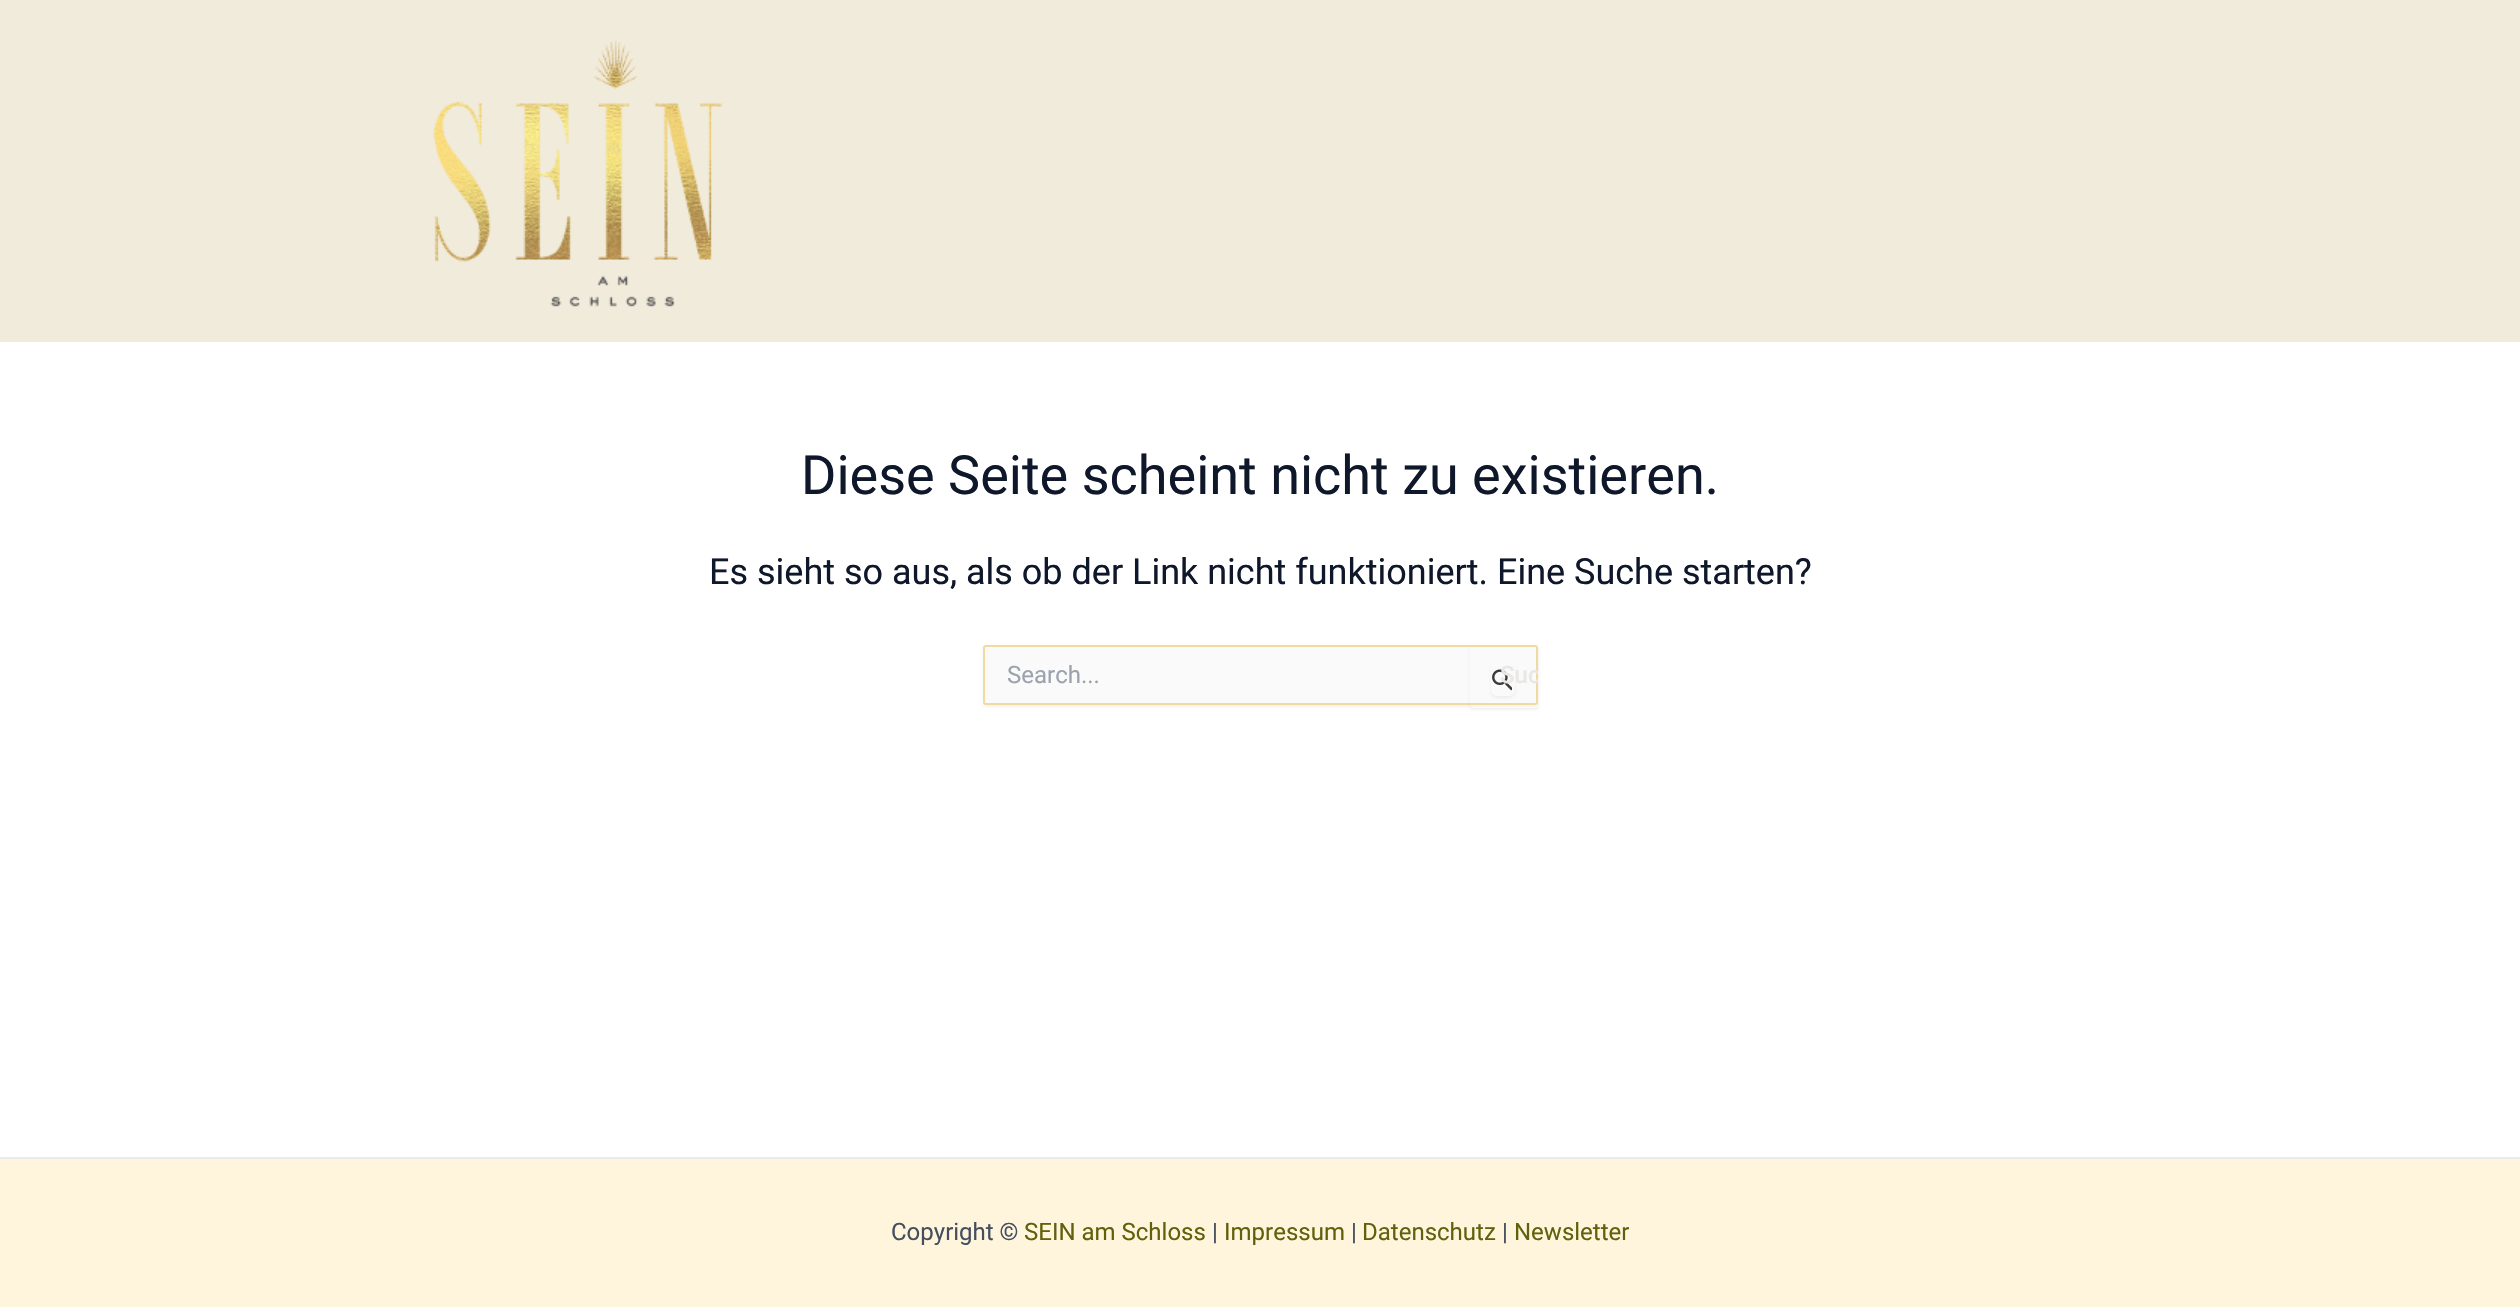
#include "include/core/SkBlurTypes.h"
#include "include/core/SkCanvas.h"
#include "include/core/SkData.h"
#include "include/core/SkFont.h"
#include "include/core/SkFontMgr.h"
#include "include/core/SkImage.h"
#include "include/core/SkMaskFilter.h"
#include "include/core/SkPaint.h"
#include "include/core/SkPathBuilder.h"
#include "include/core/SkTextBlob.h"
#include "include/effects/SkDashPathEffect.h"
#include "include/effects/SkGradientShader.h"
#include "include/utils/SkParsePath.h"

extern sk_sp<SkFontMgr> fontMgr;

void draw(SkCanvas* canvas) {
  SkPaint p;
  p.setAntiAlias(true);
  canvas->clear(SK_ColorWHITE);
  p.setColor(SkColorSetRGB(241, 235, 220));
  canvas->drawRect(SkRect::MakeLTRB(0, 0, 2520, 342), p);
  canvas->drawImageRect(SkImages::DeferredFromEncodedData(SkData::MakeFromFileName("images/1.png")), SkRect::MakeLTRB(433, 40, 723, 307), SkSamplingOptions());
  p.setColor(SkColorSetARGB(13, 0, 0, 0));
  p.setMaskFilter(SkMaskFilter::MakeBlur(kNormal_SkBlurStyle, 1.5f));
  canvas->drawRoundRect(SkRect::MakeLTRB(983, 647, 1538, 707), 3, 3, p);
  p.setMaskFilter(nullptr);
  p.setColor(SkColorSetRGB(250, 250, 250));
  canvas->drawRoundRect(SkRect::MakeLTRB(984, 646, 1537, 704), 2, 2, p);
  p.setStyle(SkPaint::kStroke_Style);
  p.setStrokeWidth(2);
  p.setColor(SkColorSetRGB(240, 218, 160));
  canvas->drawRoundRect(SkRect::MakeLTRB(984, 646, 1537, 704), 2, 2, p);
  canvas->save();
  canvas->clipPath(SkPathBuilder(SkPathFillType::kEvenOdd).moveTo(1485, 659).lineTo(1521, 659).lineTo(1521, 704).lineTo(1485, 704).close().moveTo(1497, 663).lineTo(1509, 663).cubicTo(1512.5f, 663, 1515, 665.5f, 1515, 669).lineTo(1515, 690).cubicTo(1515, 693.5f, 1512.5f, 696, 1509, 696).lineTo(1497, 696).cubicTo(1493.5f, 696, 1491, 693.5f, 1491, 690).lineTo(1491, 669).cubicTo(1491, 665.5f, 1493.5f, 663, 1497, 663).close().detach(), true);
  p.setStyle(SkPaint::kFill_Style);
  p.setColor(SkColorSetARGB(13, 0, 0, 0));
  p.setMaskFilter(SkMaskFilter::MakeBlur(kNormal_SkBlurStyle, 1.5f));
  canvas->drawRoundRect(SkRect::MakeLTRB(1491, 665, 1515, 698), 6, 6, p);
  p.setMaskFilter(nullptr);
  canvas->restore();
  canvas->drawImageRect(SkImages::DeferredFromEncodedData(SkData::MakeFromFileName("images/2.png")), SkRect::MakeLTRB(1492, 669, 1512, 691), SkSamplingOptions());
  canvas->save();
  canvas->clipPath(SkPathBuilder(SkPathFillType::kEvenOdd).moveTo(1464, 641).lineTo(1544, 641).lineTo(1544, 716).lineTo(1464, 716).close().moveTo(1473, 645).lineTo(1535, 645).cubicTo(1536.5f, 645, 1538, 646.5f, 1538, 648).lineTo(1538, 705).cubicTo(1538, 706.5f, 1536.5f, 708, 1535, 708).lineTo(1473, 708).cubicTo(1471.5f, 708, 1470, 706.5f, 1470, 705).lineTo(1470, 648).cubicTo(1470, 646.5f, 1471.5f, 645, 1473, 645).close().detach(), true);
  p.setMaskFilter(SkMaskFilter::MakeBlur(kNormal_SkBlurStyle, 1.5f));
  canvas->drawRoundRect(SkRect::MakeLTRB(1470, 647, 1538, 710), 3, 3, p);
  p.setMaskFilter(nullptr);
  canvas->restore();
  p.setColor(SkColorSetRGB(255, 245, 221));
  canvas->drawRect(SkRect::MakeLTRB(0, 1159, 2520, 1307), p);
  p.setColor(SkColorSetRGB(234, 234, 234));
  canvas->drawRect(SkRect::MakeLTRB(0, 1157, 2520, 1159), p);
  SkFont font1(fontMgr->matchFamilyStyle("Roboto", SkFontStyle::Normal()), 54);
  font1.setSubpixel(true);
  p.setColor(SkColorSetRGB(15, 23, 42));
  canvas->drawString("Diese Seite scheint nicht zu existieren.", 801, 494, font1, p);
  SkFont font2(fontMgr->matchFamilyStyle("Roboto", SkFontStyle::Normal()), 36);
  font2.setSubpixel(true);
  canvas->drawString("Es sieht so aus, als ob der Link nicht funktioniert. Eine Suche starten?", 709, 584, font2, p);
  SkFont font3(fontMgr->matchFamilyStyle("Roboto", SkFontStyle::Normal()), 24);
  font3.setSubpixel(true);
  p.setColor(SkColorSetRGB(156, 163, 175));
  canvas->drawString("Search...", 1007, 683, font3, p);
  canvas->save();
  canvas->clipPath(SkPathBuilder().moveTo(1473, 645).lineTo(1535, 645).cubicTo(1536.5f, 645, 1538, 646.5f, 1538, 648).lineTo(1538, 705).cubicTo(1538, 706.5f, 1536.5f, 708, 1535, 708).lineTo(1473, 708).cubicTo(1471.5f, 708, 1470, 706.5f, 1470, 705).lineTo(1470, 648).cubicTo(1470, 646.5f, 1471.5f, 645, 1473, 645).close().detach(), true);
  SkFont font4(fontMgr->matchFamilyStyle("Roboto", SkFontStyle(500, SkFontStyle::kNormal_Width, SkFontStyle::kUpright_Slant)), 24);
  font4.setSubpixel(true);
  p.setColor(SkColorSetRGB(233, 232, 229));
  canvas->drawString("Suc", 1500, 683, font4, p);
  canvas->restore();
  p.setColor(SkColorSetRGB(69, 79, 94));
  canvas->drawString("Copyright ©", 891, 1240, font3, p);
  p.setColor(SkColorSetRGB(97, 96, 11));
  canvas->drawString("SEIN am Schloss", 1024, 1240, font3, p);
  p.setColor(SkColorSetRGB(69, 79, 94));
  canvas->drawString("|", 1212, 1240, font3, p);
  p.setColor(SkColorSetRGB(97, 96, 11));
  canvas->drawString("Impressum", 1224, 1240, font3, p);
  p.setColor(SkColorSetRGB(69, 79, 94));
  canvas->drawString("|", 1351, 1240, font3, p);
  p.setColor(SkColorSetRGB(97, 96, 11));
  canvas->drawString("Datenschutz", 1362, 1240, font3, p);
  p.setColor(SkColorSetRGB(69, 79, 94));
  canvas->drawString("|", 1502, 1240, font3, p);
  p.setColor(SkColorSetRGB(97, 96, 11));
  canvas->drawString("Newsletter", 1514, 1240, font3, p);
}
